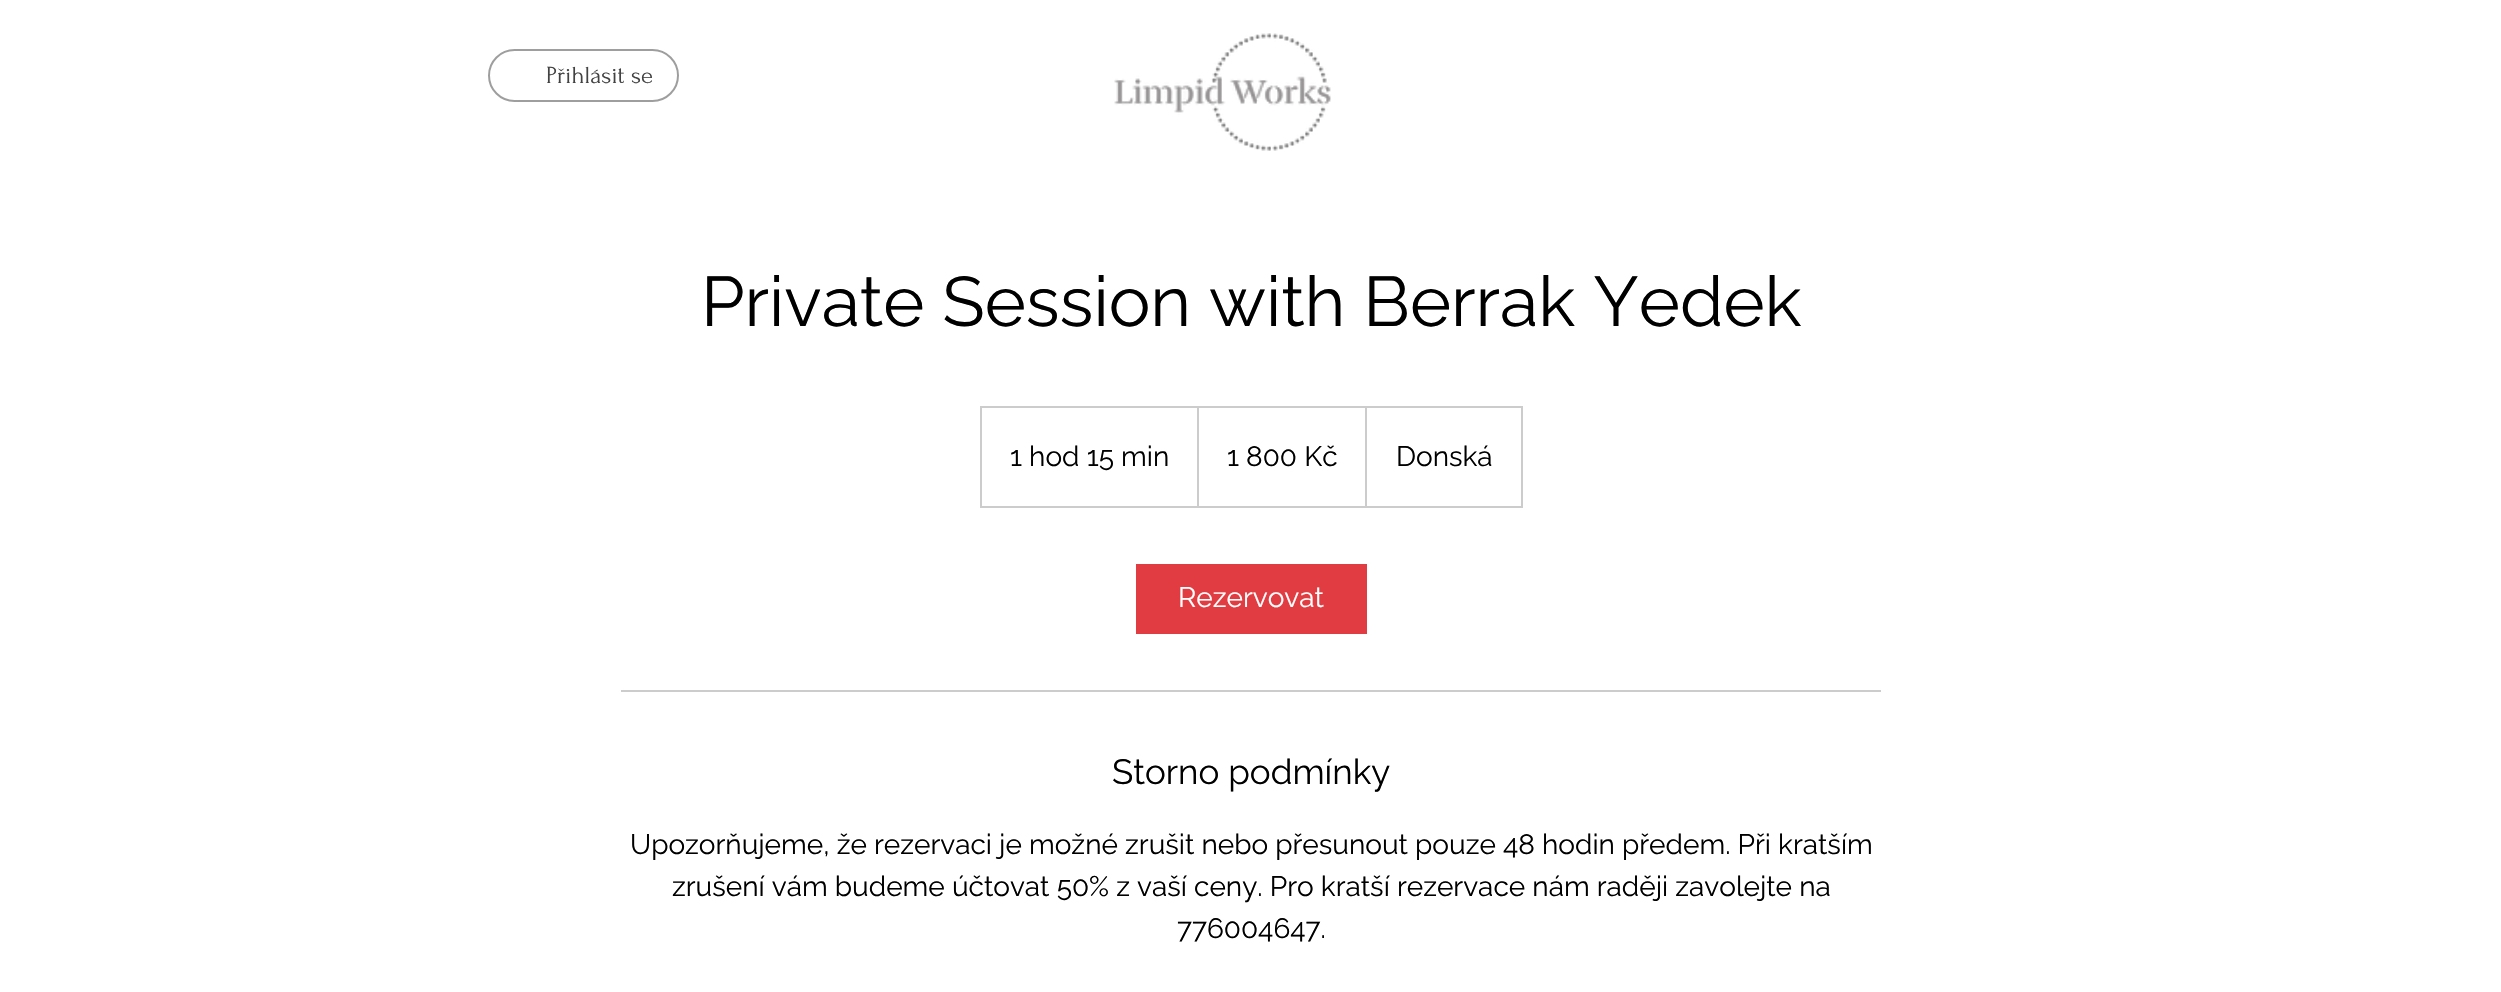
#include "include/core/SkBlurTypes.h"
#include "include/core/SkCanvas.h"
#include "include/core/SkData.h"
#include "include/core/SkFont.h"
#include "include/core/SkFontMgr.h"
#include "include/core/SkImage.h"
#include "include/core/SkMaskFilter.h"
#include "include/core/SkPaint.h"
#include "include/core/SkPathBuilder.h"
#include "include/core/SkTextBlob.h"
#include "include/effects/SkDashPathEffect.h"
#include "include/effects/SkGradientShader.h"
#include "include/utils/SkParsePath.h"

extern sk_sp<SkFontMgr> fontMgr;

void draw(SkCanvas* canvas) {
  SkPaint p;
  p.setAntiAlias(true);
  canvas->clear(SK_ColorWHITE);
  p.setStyle(SkPaint::kStroke_Style);
  p.setStrokeWidth(2);
  p.setColor(SkColorSetRGB(158, 158, 158));
  canvas->drawRoundRect(SkRect::MakeLTRB(489, 50, 678, 101), 25.5f, 25.5f, p);
  canvas->drawImageRect(SkImages::DeferredFromEncodedData(SkData::MakeFromFileName("images/1.png")), SkRect::MakeLTRB(1114, 33, 1331, 151), SkSamplingOptions());
  p.setColor(SkColorSetRGB(204, 204, 204));
  canvas->drawRect(SkRect::MakeLTRB(981, 407, 1522, 507), p);
  canvas->save();
  canvas->clipRect(SkRect::MakeLTRB(982, 408, 1521, 506));
  p.setStyle(SkPaint::kFill_Style);
  canvas->drawPath(SkPathBuilder().moveTo(1197, 506).lineTo(1197, 406).lineTo(1199, 408).lineTo(1199, 506).close().detach(), p);
  canvas->drawPath(SkPathBuilder().moveTo(1365, 506).lineTo(1365, 406).lineTo(1367, 408).lineTo(1367, 506).close().detach(), p);
  canvas->restore();
  p.setColor(SkColorSetRGB(225, 60, 66));
  canvas->drawRect(SkRect::MakeLTRB(1136, 564, 1367, 634), p);
  p.setColor(SkColorSetRGB(204, 204, 204));
  canvas->drawRect(SkRect::MakeLTRB(621, 690, 1881, 692), p);
  SkFont font1(fontMgr->matchFamilyStyle("Forum", SkFontStyle::Normal()), 24.5f);
  font1.setSubpixel(true);
  p.setColor(SkColorSetRGB(66, 66, 66));
  canvas->drawString("Přihlásit se", 546, 83, font1, p);
  SkFont font2(fontMgr->matchFamilyStyle("Raleway", SkFontStyle::Normal()), 70);
  font2.setSubpixel(true);
  p.setColor(SK_ColorBLACK);
  canvas->drawString("Private Session with Berrak Yedek", 701, 326, font2, p);
  SkFont font3(fontMgr->matchFamilyStyle("Raleway", SkFontStyle::Normal()), 28);
  font3.setSubpixel(true);
  canvas->drawString("1 hod 15 min", 1010, 466, font3, p);
  canvas->drawString("1 800 Kč", 1227, 466, font3, p);
  canvas->drawString("Donská", 1396, 466, font3, p);
  p.setColor(SK_ColorWHITE);
  canvas->drawString("Rezervovat", 1178, 607, font3, p);
  SkFont font4(fontMgr->matchFamilyStyle("Raleway", SkFontStyle::Normal()), 35);
  font4.setSubpixel(true);
  p.setColor(SK_ColorBLACK);
  canvas->drawString("Storno podmínky", 1112, 784, font4, p);
  canvas->drawString("Upozorňujeme, že rezervaci je možné zrušit nebo přesunout pouze 48 hodin předem. Při kratším", 630, 854, font3, p);
  canvas->drawString("zrušení vám budeme účtovat 50% z vaší ceny. Pro kratší rezervace nám raději zavolejte na", 672, 896, font3, p);
  canvas->drawString("776004647.", 1177, 938, font3, p);
}
